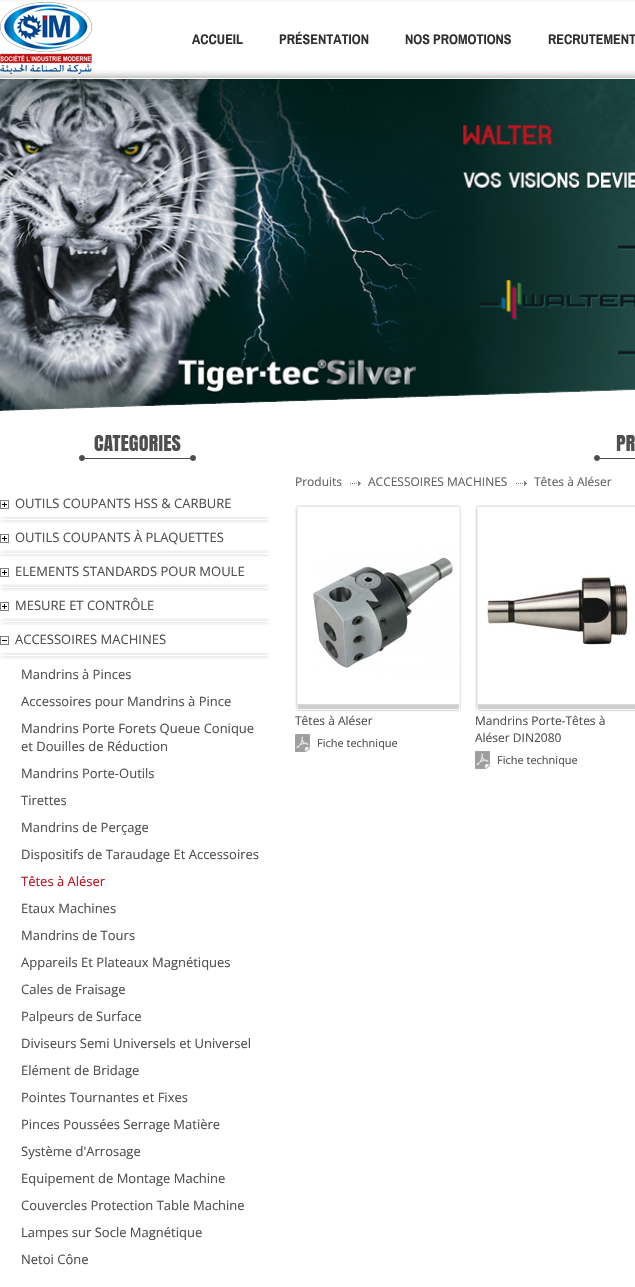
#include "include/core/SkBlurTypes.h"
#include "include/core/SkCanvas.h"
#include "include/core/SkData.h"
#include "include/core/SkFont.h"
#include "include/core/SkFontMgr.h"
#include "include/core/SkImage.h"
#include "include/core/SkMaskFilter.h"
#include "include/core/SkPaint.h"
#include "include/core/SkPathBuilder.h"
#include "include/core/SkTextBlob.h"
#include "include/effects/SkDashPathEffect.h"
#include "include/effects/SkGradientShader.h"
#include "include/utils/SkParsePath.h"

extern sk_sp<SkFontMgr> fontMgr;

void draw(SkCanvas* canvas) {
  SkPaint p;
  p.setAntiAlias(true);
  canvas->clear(SK_ColorWHITE);
  canvas->drawImageRect(SkImages::DeferredFromEncodedData(SkData::MakeFromFileName("images/1.png")), SkRect::MakeLTRB(0, 0, 635, 78), SkSamplingOptions());
  canvas->drawImageRect(SkImages::DeferredFromEncodedData(SkData::MakeFromFileName("images/2.png")), SkRect::MakeLTRB(0, 2, 92, 74), SkSamplingOptions());
  canvas->drawImageRect(SkImages::DeferredFromEncodedData(SkData::MakeFromFileName("images/3.png")), SkRect::MakeLTRB(0, 79, 635, 411), SkSamplingOptions());
  canvas->drawImageRect(SkImages::DeferredFromEncodedData(SkData::MakeFromFileName("images/4.png")), SkRect::MakeLTRB(79, 435, 196, 461), SkSamplingOptions());
  canvas->drawImageRect(SkImages::DeferredFromEncodedData(SkData::MakeFromFileName("images/5.png")), SkRect::MakeLTRB(0, 500, 9, 509), SkSamplingOptions());
  canvas->drawImageRect(SkImages::DeferredFromEncodedData(SkData::MakeFromFileName("images/6.png")), SkRect::MakeLTRB(0, 516, 270, 523), SkSamplingOptions());
  canvas->drawImageRect(SkImages::DeferredFromEncodedData(SkData::MakeFromFileName("images/5.png")), SkRect::MakeLTRB(0, 534, 9, 543), SkSamplingOptions());
  canvas->drawImageRect(SkImages::DeferredFromEncodedData(SkData::MakeFromFileName("images/6.png")), SkRect::MakeLTRB(0, 550, 270, 557), SkSamplingOptions());
  canvas->drawImageRect(SkImages::DeferredFromEncodedData(SkData::MakeFromFileName("images/5.png")), SkRect::MakeLTRB(0, 568, 9, 577), SkSamplingOptions());
  canvas->drawImageRect(SkImages::DeferredFromEncodedData(SkData::MakeFromFileName("images/6.png")), SkRect::MakeLTRB(0, 584, 270, 591), SkSamplingOptions());
  canvas->drawImageRect(SkImages::DeferredFromEncodedData(SkData::MakeFromFileName("images/5.png")), SkRect::MakeLTRB(0, 602, 9, 611), SkSamplingOptions());
  canvas->drawImageRect(SkImages::DeferredFromEncodedData(SkData::MakeFromFileName("images/6.png")), SkRect::MakeLTRB(0, 618, 270, 625), SkSamplingOptions());
  canvas->drawImageRect(SkImages::DeferredFromEncodedData(SkData::MakeFromFileName("images/7.png")), SkRect::MakeLTRB(0, 636, 9, 645), SkSamplingOptions());
  canvas->drawImageRect(SkImages::DeferredFromEncodedData(SkData::MakeFromFileName("images/6.png")), SkRect::MakeLTRB(0, 652, 270, 659), SkSamplingOptions());
  canvas->drawImageRect(SkImages::DeferredFromEncodedData(SkData::MakeFromFileName("images/8.png")), SkRect::MakeLTRB(594, 435, 635, 461), SkSamplingOptions());
  canvas->drawImageRect(SkImages::DeferredFromEncodedData(SkData::MakeFromFileName("images/9.png")), SkRect::MakeLTRB(350, 481, 361, 486), SkSamplingOptions());
  canvas->drawImageRect(SkImages::DeferredFromEncodedData(SkData::MakeFromFileName("images/9.png")), SkRect::MakeLTRB(516, 481, 527, 486), SkSamplingOptions());
  canvas->drawImageRect(SkImages::DeferredFromEncodedData(SkData::MakeFromFileName("images/10.png")), SkRect::MakeLTRB(295, 505, 461, 712), SkSamplingOptions());
  canvas->drawImageRect(SkImages::DeferredFromEncodedData(SkData::MakeFromFileName("images/11.png")), SkRect::MakeLTRB(313, 508, 459, 703), SkSamplingOptions());
  canvas->drawImageRect(SkImages::DeferredFromEncodedData(SkData::MakeFromFileName("images/12.png")), SkRect::MakeLTRB(295, 734, 310, 752), SkSamplingOptions());
  canvas->drawImageRect(SkImages::DeferredFromEncodedData(SkData::MakeFromFileName("images/13.png")), SkRect::MakeLTRB(475, 505, 635, 712), SkSamplingOptions());
  canvas->drawImageRect(SkImages::DeferredFromEncodedData(SkData::MakeFromFileName("images/14.png")), SkRect::MakeLTRB(486, 573, 629, 645), SkSamplingOptions());
  canvas->drawImageRect(SkImages::DeferredFromEncodedData(SkData::MakeFromFileName("images/12.png")), SkRect::MakeLTRB(475, 751, 490, 769), SkSamplingOptions());
  SkFont font1(fontMgr->matchFamilyStyle("Archivo Narrow", SkFontStyle::Bold()), 14);
  font1.setSubpixel(true);
  p.setColor(SkColorSetRGB(47, 47, 47));
  canvas->drawString("ACCUEIL", 192, 44, font1, p);
  canvas->drawString("PRÉSENTATION", 279, 44, font1, p);
  canvas->drawString("NOS PROMOTIONS", 405, 44, font1, p);
  canvas->drawString("RECRUTEMENT", 548, 44, font1, p);
  SkFont font2(fontMgr->matchFamilyStyle("Open Sans", SkFontStyle::Normal()), 13);
  font2.setSubpixel(true);
  p.setColor(SkColorSetRGB(79, 79, 79));
  canvas->drawString("OUTILS COUPANTS HSS & CARBURE", 15, 508, font2, p);
  canvas->drawString("OUTILS COUPANTS À PLAQUETTES", 15, 542, font2, p);
  canvas->drawString("ELEMENTS STANDARDS POUR MOULE", 15, 576, font2, p);
  canvas->drawString("MESURE ET CONTRÔLE", 15, 610, font2, p);
  canvas->drawString("ACCESSOIRES MACHINES", 15, 644, font2, p);
  canvas->drawString("Mandrins à Pinces", 21, 679, font2, p);
  canvas->drawString("Accessoires pour Mandrins à Pince", 21, 706, font2, p);
  canvas->drawString("Mandrins Porte Forets Queue Conique", 21, 733, font2, p);
  canvas->drawString("et Douilles de Réduction", 21, 751, font2, p);
  canvas->drawString("Mandrins Porte-Outils", 21, 778, font2, p);
  canvas->drawString("Tirettes", 21, 805, font2, p);
  canvas->drawString("Mandrins de Perçage", 21, 832, font2, p);
  canvas->drawString("Dispositifs de Taraudage Et Accessoires", 21, 859, font2, p);
  p.setColor(SkColorSetRGB(184, 22, 32));
  canvas->drawString("Têtes à Aléser", 21, 886, font2, p);
  p.setColor(SkColorSetRGB(79, 79, 79));
  canvas->drawString("Etaux Machines", 21, 913, font2, p);
  canvas->drawString("Mandrins de Tours", 21, 940, font2, p);
  canvas->drawString("Appareils Et Plateaux Magnétiques", 21, 967, font2, p);
  canvas->drawString("Cales de Fraisage", 21, 994, font2, p);
  canvas->drawString("Palpeurs de Surface", 21, 1021, font2, p);
  canvas->drawString("Diviseurs Semi Universels et Universel", 21, 1048, font2, p);
  canvas->drawString("Elément de Bridage", 21, 1075, font2, p);
  canvas->drawString("Pointes Tournantes et Fixes", 21, 1102, font2, p);
  canvas->drawString("Pinces Poussées Serrage Matière", 21, 1129, font2, p);
  canvas->drawString("Système d'Arrosage", 21, 1156, font2, p);
  canvas->drawString("Equipement de Montage Machine", 21, 1183, font2, p);
  canvas->drawString("Couvercles Protection Table Machine", 21, 1210, font2, p);
  canvas->drawString("Lampes sur Socle Magnétique", 21, 1237, font2, p);
  canvas->drawString("Netoi Cône", 21, 1264, font2, p);
  SkFont font3(fontMgr->matchFamilyStyle("Open Sans", SkFontStyle::Normal()), 12);
  font3.setSubpixel(true);
  p.setColor(SkColorSetRGB(96, 96, 96));
  canvas->drawString("Produits", 295, 486, font3, p);
  canvas->drawString("ACCESSOIRES MACHINES", 368, 486, font3, p);
  canvas->drawString("Têtes à Aléser", 534, 486, font3, p);
  p.setColor(SkColorSetRGB(79, 79, 79));
  canvas->drawString("Têtes à Aléser", 295, 725, font3, p);
  SkFont font4(fontMgr->matchFamilyStyle("Open Sans", SkFontStyle::Normal()), 11);
  font4.setSubpixel(true);
  canvas->drawString("Fiche technique", 317, 747, font4, p);
  canvas->drawString("Mandrins Porte-Têtes à", 475, 725, font3, p);
  canvas->drawString("Aléser DIN2080", 475, 742, font3, p);
  canvas->drawString("Fiche technique", 497, 764, font4, p);
}
